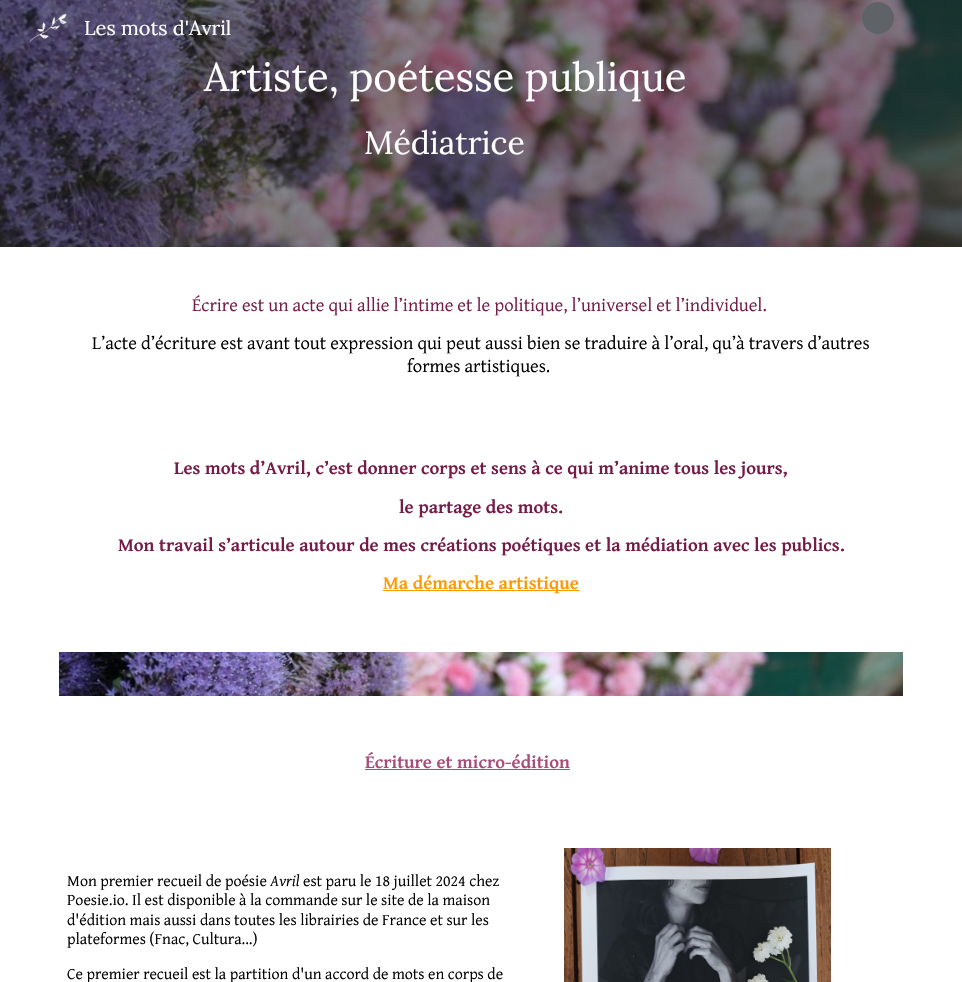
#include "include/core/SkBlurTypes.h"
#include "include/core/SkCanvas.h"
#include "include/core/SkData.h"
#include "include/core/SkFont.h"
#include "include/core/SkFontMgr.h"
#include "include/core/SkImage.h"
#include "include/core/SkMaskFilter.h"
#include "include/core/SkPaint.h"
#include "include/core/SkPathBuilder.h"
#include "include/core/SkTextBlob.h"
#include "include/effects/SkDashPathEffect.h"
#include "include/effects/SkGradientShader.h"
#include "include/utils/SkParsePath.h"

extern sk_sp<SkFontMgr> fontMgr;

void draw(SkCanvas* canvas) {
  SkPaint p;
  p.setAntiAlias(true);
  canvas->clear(SK_ColorWHITE);
  canvas->drawImageRect(SkImages::DeferredFromEncodedData(SkData::MakeFromFileName("images/2.png")), SkRect::MakeLTRB(0, 0, 962, 247), SkSamplingOptions());
  canvas->drawImageRect(SkImages::DeferredFromEncodedData(SkData::MakeFromFileName("images/1.png")), SkRect::MakeLTRB(29, 13, 67, 43), SkSamplingOptions());
  p.setColor(SkColorSetRGB(95, 99, 104));
  canvas->drawCircle(878, 18, 16, p);
  p.setColor(SkColorSetRGB(255, 153, 0));
  canvas->drawRect(SkRect::MakeLTRB(383, 590, 579, 591), p);
  canvas->drawImageRect(SkImages::DeferredFromEncodedData(SkData::MakeFromFileName("images/3.png")), SkRect::MakeLTRB(59, 652, 903, 696), SkSamplingOptions());
  p.setColor(SkColorSetRGB(166, 77, 121));
  canvas->drawRect(SkRect::MakeLTRB(365, 769, 570, 770), p);
  canvas->drawImageRect(SkImages::DeferredFromEncodedData(SkData::MakeFromFileName("images/4.png")), SkRect::MakeLTRB(564, 848, 831, 982), SkSamplingOptions());
  SkFont font1(fontMgr->matchFamilyStyle("Lora", SkFontStyle::Normal()), 20);
  font1.setSubpixel(true);
  p.setColor(SK_ColorWHITE);
  canvas->drawString("Les mots d'Avril", 84, 35, font1, p);
  SkFont font2(fontMgr->matchFamilyStyle("Lora", SkFontStyle::Normal()), 40);
  font2.setSubpixel(true);
  canvas->drawString("Artiste, poétesse publique", 204, 91, font2, p);
  SkFont font3(fontMgr->matchFamilyStyle("Lora", SkFontStyle::Normal()), 32);
  font3.setSubpixel(true);
  canvas->drawString("Médiatrice", 364, 154, font3, p);
  SkFont font4(fontMgr->matchFamilyStyle("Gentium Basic", SkFontStyle::Normal()), 18.65f);
  font4.setSubpixel(true);
  p.setColor(SkColorSetRGB(116, 27, 71));
  canvas->drawString("Écrire est un acte qui allie l’intime et le politique, l’universel et l’individuel.", 192, 311, font4, p);
  p.setColor(SK_ColorBLACK);
  canvas->drawString("L’acte d’écriture est avant tout expression qui peut aussi bien se traduire à l’oral, qu’à travers d’autres", 92, 349, font4, p);
  canvas->drawString("formes artistiques.", 407, 372, font4, p);
  SkFont font5(fontMgr->matchFamilyStyle("Gentium Basic", SkFontStyle::Bold()), 18.65f);
  font5.setSubpixel(true);
  p.setColor(SkColorSetRGB(116, 27, 71));
  canvas->drawString("Les mots d’Avril, c’est donner corps et sens à ce qui m’anime tous les jours,", 174, 474, font5, p);
  canvas->drawString("le partage des mots.", 399, 513, font5, p);
  canvas->drawString("Mon travail s’articule autour de mes créations poétiques et la médiation avec les publics.", 118, 551, font5, p);
  p.setColor(SkColorSetRGB(255, 153, 0));
  canvas->drawString("Ma démarche artistique", 383, 589, font5, p);
  p.setColor(SkColorSetRGB(166, 77, 121));
  canvas->drawString("Écriture et micro-édition", 365, 768, font5, p);
  SkFont font6(fontMgr->matchFamilyStyle("Gentium Basic", SkFontStyle::Normal()), 16);
  font6.setSubpixel(true);
  p.setColor(SK_ColorBLACK);
  canvas->drawString("Mon premier recueil de poésie", 67, 886, font6, p);
  SkFont font7(fontMgr->matchFamilyStyle("Gentium Basic", SkFontStyle::Italic()), 16);
  font7.setSubpixel(true);
  canvas->drawString("Avril", 270, 886, font7, p);
  canvas->drawString("est paru le 18 juillet 2024 chez", 303, 886, font6, p);
  canvas->drawString("Poesie.io. Il est disponible à la commande sur le site de la maison", 67, 905, font6, p);
  canvas->drawString("d'édition mais aussi dans toutes les librairies de France et sur les", 67, 925, font6, p);
  canvas->drawString("plateformes (Fnac, Cultura...)", 67, 944, font6, p);
  canvas->drawString("Ce premier recueil est la partition d'un accord de mots en corps de", 67, 979, font6, p);
}
